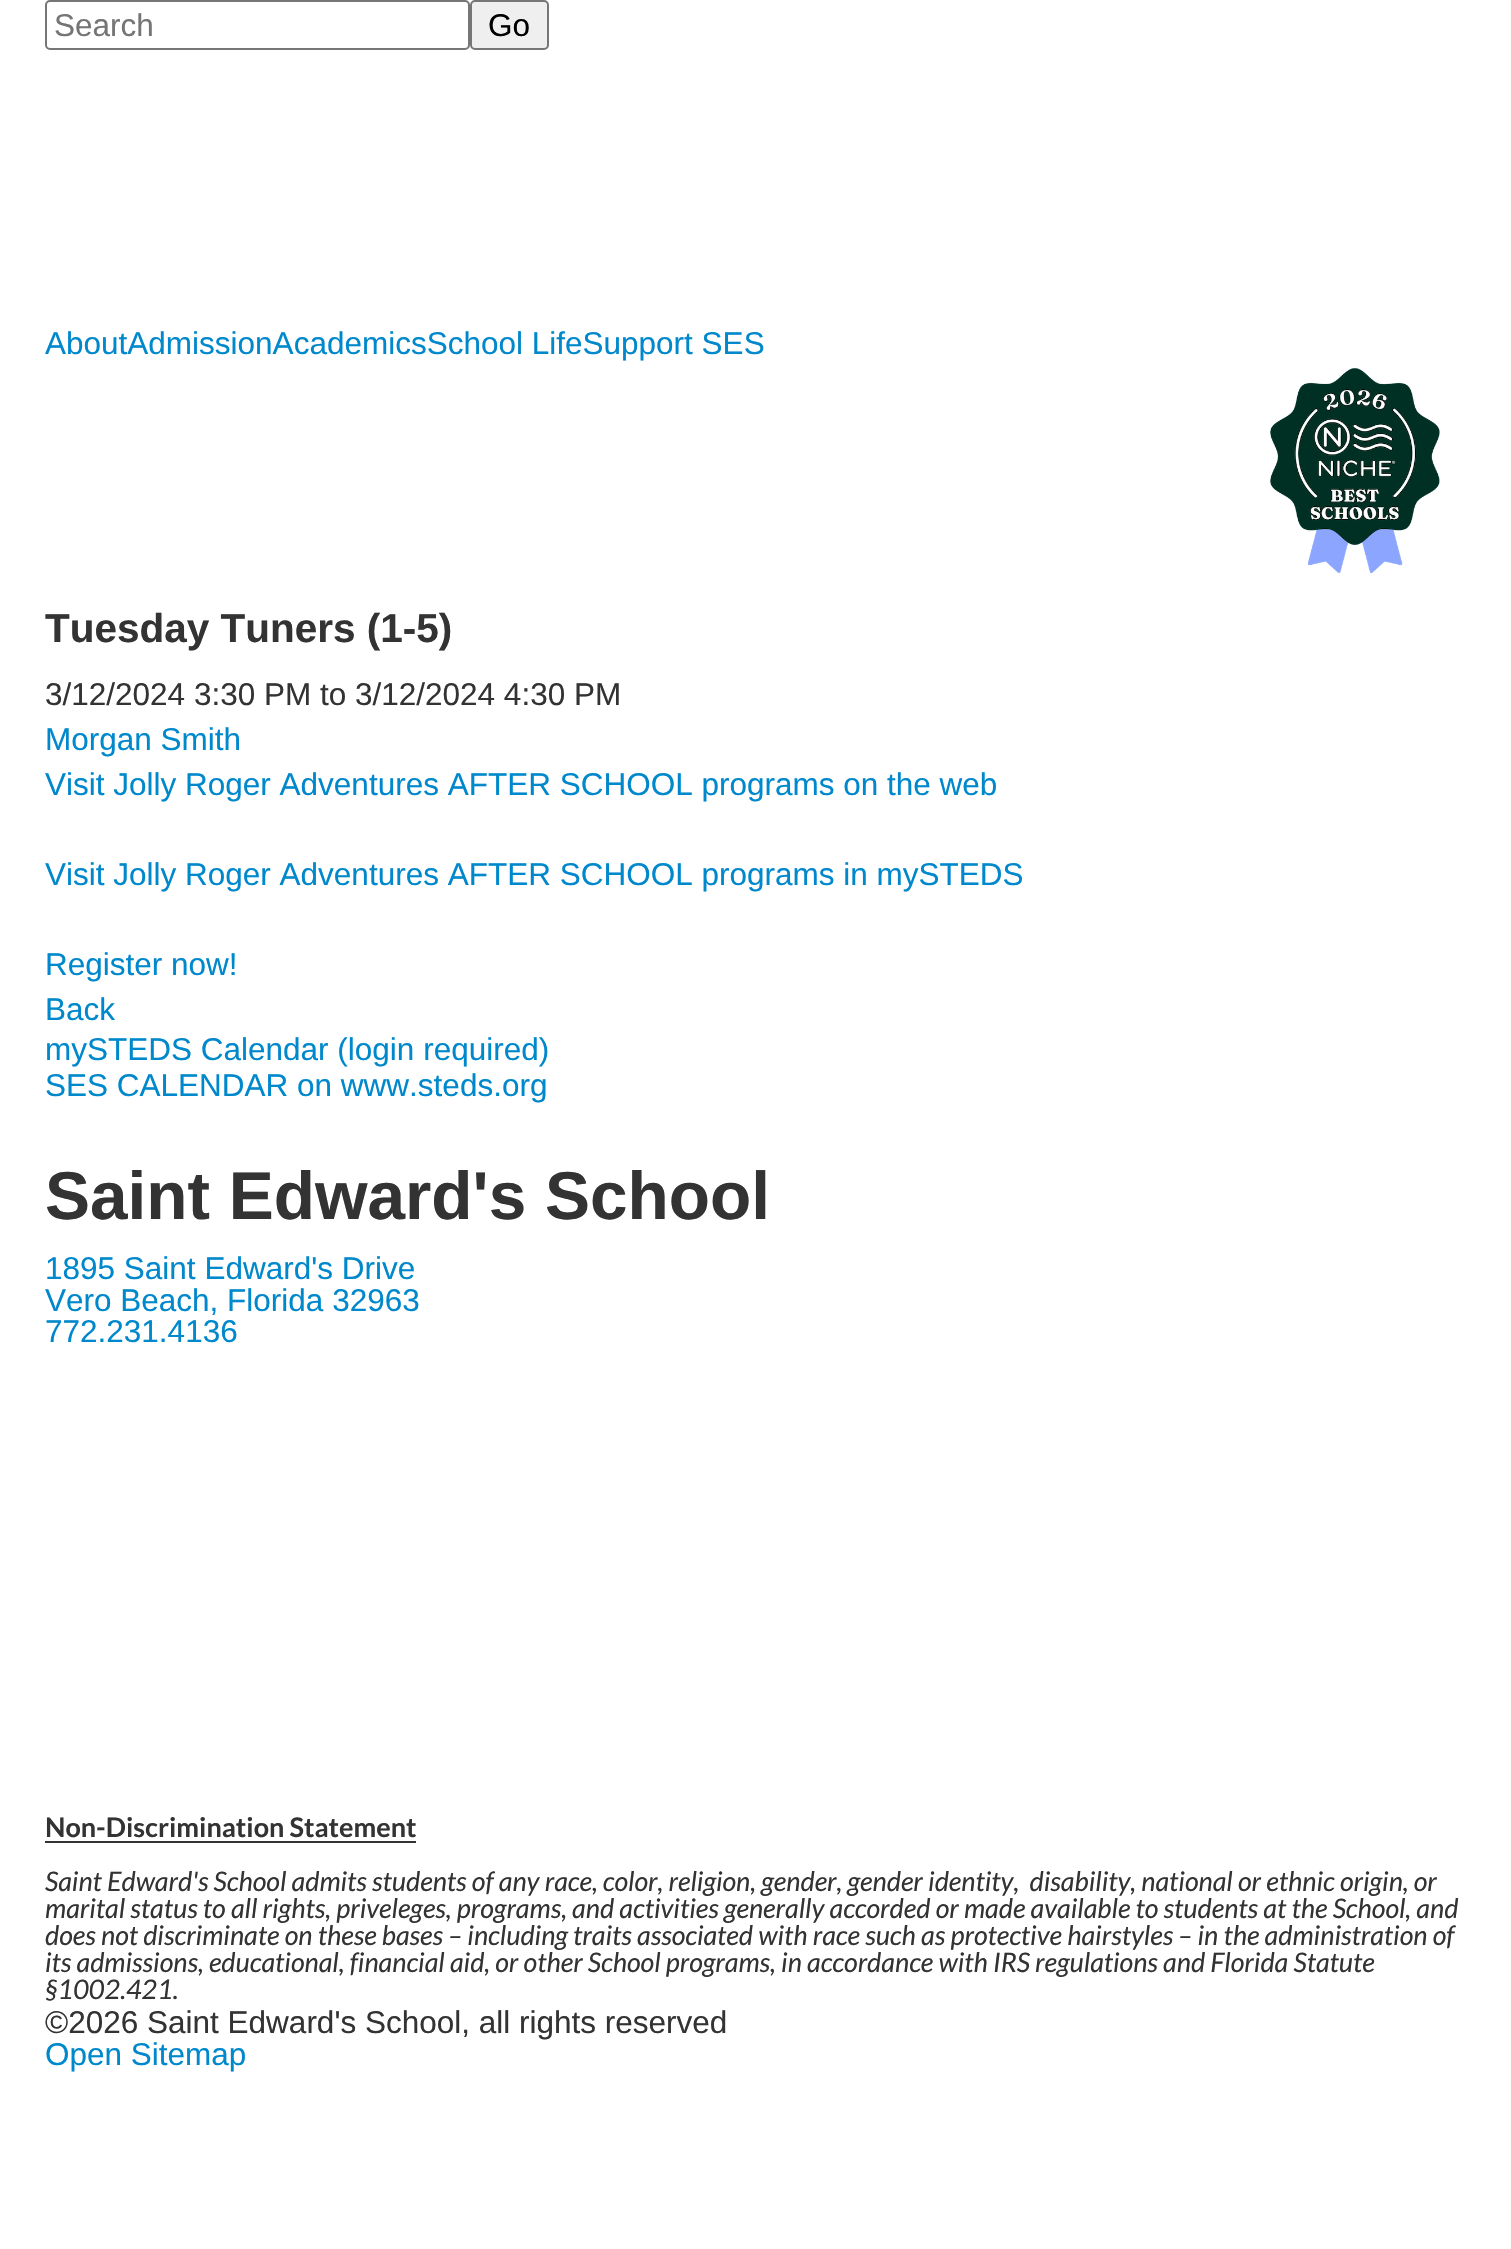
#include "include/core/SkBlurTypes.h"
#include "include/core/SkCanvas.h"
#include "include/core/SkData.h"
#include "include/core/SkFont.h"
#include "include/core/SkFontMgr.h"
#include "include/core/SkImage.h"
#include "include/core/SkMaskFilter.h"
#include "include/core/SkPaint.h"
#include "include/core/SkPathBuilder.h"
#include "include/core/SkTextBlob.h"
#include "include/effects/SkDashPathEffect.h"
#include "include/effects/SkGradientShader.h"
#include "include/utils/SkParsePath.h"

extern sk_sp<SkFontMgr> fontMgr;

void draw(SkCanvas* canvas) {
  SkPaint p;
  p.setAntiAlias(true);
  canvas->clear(SK_ColorWHITE);
  p.setStyle(SkPaint::kStroke_Style);
  p.setStrokeWidth(2);
  p.setColor(SkColorSetRGB(118, 118, 118));
  canvas->drawRoundRect(SkRect::MakeLTRB(46, 1, 469, 49), 4, 4, p);
  p.setStyle(SkPaint::kFill_Style);
  p.setColor(SkColorSetRGB(239, 239, 239));
  canvas->drawRoundRect(SkRect::MakeLTRB(471, 1, 548, 49), 4, 4, p);
  p.setStyle(SkPaint::kStroke_Style);
  p.setColor(SkColorSetRGB(118, 118, 118));
  canvas->drawRoundRect(SkRect::MakeLTRB(471, 1, 548, 49), 4, 4, p);
  canvas->drawImageRect(SkImages::DeferredFromEncodedData(SkData::MakeFromFileName("images/1.png")), SkRect::MakeLTRB(1270, 368, 1440, 573), SkSamplingOptions());
  p.setStyle(SkPaint::kFill_Style);
  p.setColor(SkColorSetRGB(51, 51, 51));
  canvas->drawRect(SkRect::MakeLTRB(45, 1841, 416, 1843), p);
  SkFont font1(fontMgr->matchFamilyStyle("Liberation Sans", SkFontStyle::Normal()), 31.5f);
  font1.setSubpixel(true);
  p.setColor(SkColorSetRGB(117, 117, 117));
  canvas->drawString("Search", 54, 36, font1, p);
  p.setColor(SK_ColorBLACK);
  canvas->drawString("Go", 488, 36, font1, p);
  p.setColor(SkColorSetRGB(0, 136, 204));
  canvas->drawString("AboutAdmissionAcademicsSchool LifeSupport SES", 45, 354, font1, p);
  SkFont font2(fontMgr->matchFamilyStyle("Liberation Sans", SkFontStyle::Bold()), 40.5f);
  font2.setSubpixel(true);
  p.setColor(SkColorSetRGB(51, 51, 51));
  canvas->drawString("Tuesday Tuners (1-5)", 45, 642, font2, p);
  canvas->drawString("3/12/2024 3:30 PM to 3/12/2024 4:30 PM", 45, 705, font1, p);
  p.setColor(SkColorSetRGB(0, 136, 204));
  canvas->drawString("Morgan Smith", 45, 750, font1, p);
  canvas->drawString("Visit Jolly Roger Adventures AFTER SCHOOL programs on the web", 45, 795, font1, p);
  canvas->drawString("Visit Jolly Roger Adventures AFTER SCHOOL programs in mySTEDS", 45, 885, font1, p);
  canvas->drawString("Register now!", 45, 975, font1, p);
  canvas->drawString("Back", 45, 1020, font1, p);
  canvas->drawString("mySTEDS Calendar (login required)", 45, 1060, font1, p);
  canvas->drawString("SES CALENDAR on www.steds.org", 45, 1096, font1, p);
  SkFont font3(fontMgr->matchFamilyStyle("Liberation Sans", SkFontStyle::Bold()), 67.5f);
  font3.setSubpixel(true);
  p.setColor(SkColorSetRGB(51, 51, 51));
  canvas->drawString("Saint Edward's School", 45, 1219, font3, p);
  p.setColor(SkColorSetRGB(0, 136, 204));
  canvas->drawString("1895 Saint Edward's Drive", 45, 1279, font1, p);
  canvas->drawString("Vero Beach, Florida 32963", 45, 1311, font1, p);
  canvas->drawString("772.231.4136", 45, 1342, font1, p);
  SkFont font4(fontMgr->matchFamilyStyle("Lato", SkFontStyle::Bold()), 27);
  font4.setSubpixel(true);
  p.setColor(SkColorSetRGB(51, 51, 51));
  canvas->drawString("Non-Discrimination Statement", 45, 1837, font4, p);
  SkFont font5(fontMgr->matchFamilyStyle("Lato", SkFontStyle::Italic()), 27);
  font5.setSubpixel(true);
  canvas->drawString("Saint Edward's School admits students of any race, color, religion, gender, gender identity,  disability, national or ethnic origin, or", 45, 1891, font5, p);
  canvas->drawString("marital status to all rights, priveleges, programs, and activities generally accorded or made available to students at the School, and", 45, 1918, font5, p);
  canvas->drawString("does not discriminate on these bases – including traits associated with race such as protective hairstyles – in the administration of", 45, 1945, font5, p);
  canvas->drawString("its admissions, educational, financial aid, or other School programs, in accordance with IRS regulations and Florida Statute", 45, 1972, font5, p);
  canvas->drawString("§1002.421.", 45, 1999, font5, p);
  canvas->drawString("©2026 Saint Edward's School, all rights reserved", 45, 2033, font1, p);
  p.setColor(SkColorSetRGB(0, 136, 204));
  canvas->drawString("Open Sitemap", 45, 2065, font1, p);
}
